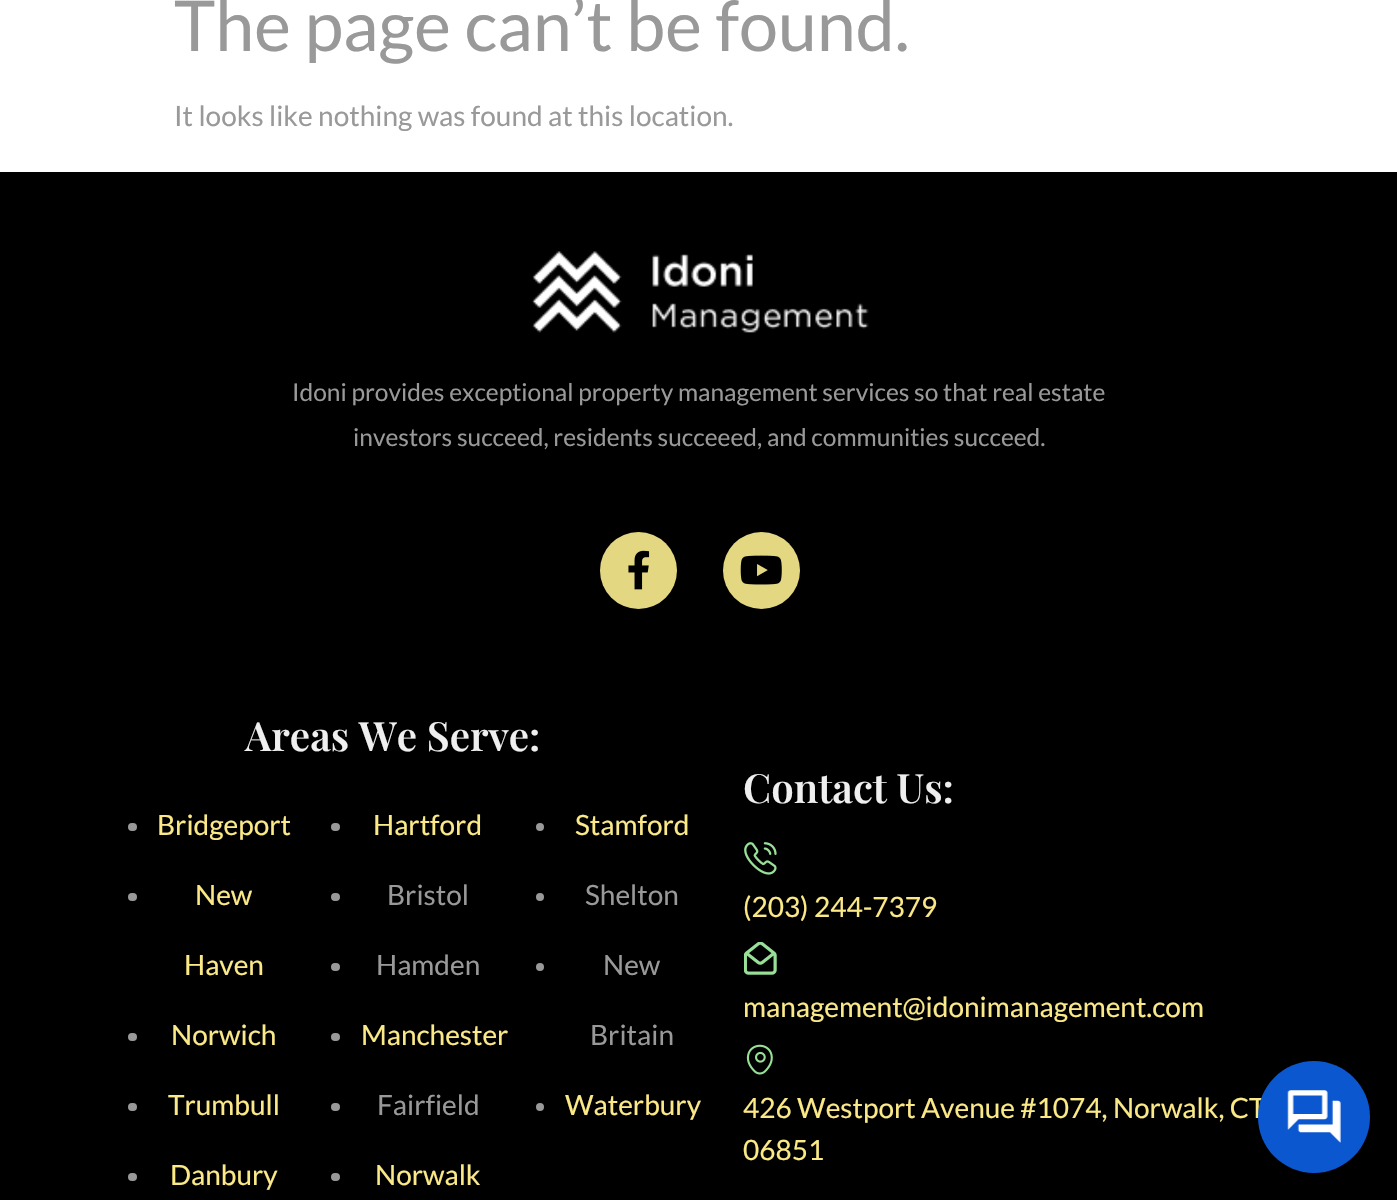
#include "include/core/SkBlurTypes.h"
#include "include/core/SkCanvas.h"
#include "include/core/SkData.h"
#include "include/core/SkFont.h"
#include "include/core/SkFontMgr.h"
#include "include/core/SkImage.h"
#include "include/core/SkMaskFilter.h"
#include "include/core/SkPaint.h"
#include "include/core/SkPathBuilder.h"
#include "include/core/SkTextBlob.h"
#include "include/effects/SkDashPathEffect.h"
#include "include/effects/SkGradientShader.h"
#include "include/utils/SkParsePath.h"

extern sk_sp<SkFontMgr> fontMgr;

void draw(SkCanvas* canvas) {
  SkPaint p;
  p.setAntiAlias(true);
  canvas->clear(SK_ColorWHITE);
  p.setColor(SK_ColorBLACK);
  canvas->drawRect(SkRect::MakeLTRB(0, 172, 1397, 1200), p);
  canvas->drawImageRect(SkImages::DeferredFromEncodedData(SkData::MakeFromFileName("images/1.png")), SkRect::MakeLTRB(532, 251, 869, 333), SkSamplingOptions());
  p.setColor(SkColorSetRGB(227, 215, 129));
  canvas->drawCircle(638.5f, 570.5f, 38.5f, p);
  canvas->drawImageRect(SkImages::DeferredFromEncodedData(SkData::MakeFromFileName("images/2.png")), SkRect::MakeLTRB(628, 550, 650, 590), SkSamplingOptions());
  canvas->drawCircle(761.5f, 570.5f, 38.5f, p);
  canvas->drawImageRect(SkImages::DeferredFromEncodedData(SkData::MakeFromFileName("images/3.png")), SkRect::MakeLTRB(740, 555, 782, 585), SkSamplingOptions());
  p.setColor(SkColorSetRGB(153, 153, 153));
  canvas->drawRoundRect(SkRect::MakeLTRB(128, 823, 137, 831), 4, 4, p);
  canvas->drawRoundRect(SkRect::MakeLTRB(331, 823, 340, 831), 4, 4, p);
  canvas->drawCircle(540, 827, 4, p);
  canvas->drawRoundRect(SkRect::MakeLTRB(128, 893, 137, 901), 4, 4, p);
  canvas->drawRoundRect(SkRect::MakeLTRB(331, 893, 340, 901), 4, 4, p);
  canvas->drawCircle(540, 897, 4, p);
  canvas->drawRoundRect(SkRect::MakeLTRB(128, 1033, 137, 1041), 4, 4, p);
  canvas->drawRoundRect(SkRect::MakeLTRB(331, 963, 340, 971), 4, 4, p);
  canvas->drawCircle(540, 967, 4, p);
  canvas->drawRoundRect(SkRect::MakeLTRB(331, 1033, 340, 1041), 4, 4, p);
  canvas->drawRoundRect(SkRect::MakeLTRB(128, 1103, 137, 1111), 4, 4, p);
  canvas->drawRoundRect(SkRect::MakeLTRB(331, 1103, 340, 1111), 4, 4, p);
  canvas->drawCircle(540, 1107, 4, p);
  canvas->drawRoundRect(SkRect::MakeLTRB(128, 1173, 137, 1181), 4, 4, p);
  canvas->drawRoundRect(SkRect::MakeLTRB(331, 1173, 340, 1181), 4, 4, p);
  canvas->drawImageRect(SkImages::DeferredFromEncodedData(SkData::MakeFromFileName("images/4.png")), SkRect::MakeLTRB(744, 842, 777, 875), SkSamplingOptions());
  canvas->drawImageRect(SkImages::DeferredFromEncodedData(SkData::MakeFromFileName("images/5.png")), SkRect::MakeLTRB(744, 942, 777, 975), SkSamplingOptions());
  canvas->drawImageRect(SkImages::DeferredFromEncodedData(SkData::MakeFromFileName("images/6.png")), SkRect::MakeLTRB(746, 1044, 773, 1075), SkSamplingOptions());
  SkFont font1(fontMgr->matchFamilyStyle("Lato", SkFontStyle::Normal()), 70);
  font1.setSubpixel(true);
  canvas->drawString("The page can’t be found.", 174, 51, font1, p);
  SkFont font2(fontMgr->matchFamilyStyle("Lato", SkFontStyle::Normal()), 28);
  font2.setSubpixel(true);
  canvas->drawString("It looks like nothing was found at this location.", 174, 126, font2, p);
  SkFont font3(fontMgr->matchFamilyStyle("Lato", SkFontStyle::Normal()), 24.5f);
  font3.setSubpixel(true);
  canvas->drawString("Idoni provides exceptional property management services so that real estate", 292, 401, font3, p);
  canvas->drawString("investors succeed, residents succeeed, and communities succeed.", 353, 446, font3, p);
  SkFont font4(fontMgr->matchFamilyStyle("Playfair Display", SkFontStyle(600, SkFontStyle::kNormal_Width, SkFontStyle::kUpright_Slant)), 40.25f);
  font4.setSubpixel(true);
  p.setColor(SkColorSetRGB(239, 239, 239));
  canvas->drawString("Areas We Serve:", 245, 751, font4, p);
  p.setColor(SkColorSetRGB(251, 233, 135));
  canvas->drawString("Bridgeport", 157, 835, font2, p);
  canvas->drawString("Hartford", 373, 835, font2, p);
  canvas->drawString("Stamford", 575, 835, font2, p);
  canvas->drawString("New", 195, 905, font2, p);
  canvas->drawString("Haven", 184, 975, font2, p);
  p.setColor(SkColorSetRGB(153, 153, 153));
  canvas->drawString("Bristol", 387, 905, font2, p);
  canvas->drawString("Shelton", 585, 905, font2, p);
  p.setColor(SkColorSetRGB(251, 233, 135));
  canvas->drawString("Norwich", 171, 1045, font2, p);
  p.setColor(SkColorSetRGB(153, 153, 153));
  canvas->drawString("Hamden", 376, 975, font2, p);
  canvas->drawString("New", 603, 975, font2, p);
  canvas->drawString("Britain", 590, 1045, font2, p);
  p.setColor(SkColorSetRGB(251, 233, 135));
  canvas->drawString("Manchester", 361, 1045, font2, p);
  canvas->drawString("Trumbull", 168, 1115, font2, p);
  p.setColor(SkColorSetRGB(153, 153, 153));
  canvas->drawString("Fairfield", 377, 1115, font2, p);
  p.setColor(SkColorSetRGB(251, 233, 135));
  canvas->drawString("Waterbury", 565, 1115, font2, p);
  canvas->drawString("Danbury", 170, 1185, font2, p);
  canvas->drawString("Norwalk", 375, 1185, font2, p);
  p.setColor(SkColorSetRGB(239, 239, 239));
  canvas->drawString("Contact Us:", 743, 803, font4, p);
  p.setColor(SkColorSetRGB(251, 233, 135));
  canvas->drawString("(203) 244-7379", 743, 917, font2, p);
  canvas->drawString("management@idonimanagement.com", 743, 1017, font2, p);
  canvas->drawString("426 Westport Avenue #1074, Norwalk, CT", 743, 1118, font2, p);
  canvas->drawString("06851", 743, 1160, font2, p);
  p.setColor(SkColorSetRGB(11, 87, 208));
  canvas->drawCircle(1314, 1117, 56, p);
  canvas->drawImageRect(SkImages::DeferredFromEncodedData(SkData::MakeFromFileName("images/7.png")), SkRect::MakeLTRB(1287, 1090, 1341, 1143), SkSamplingOptions());
}
